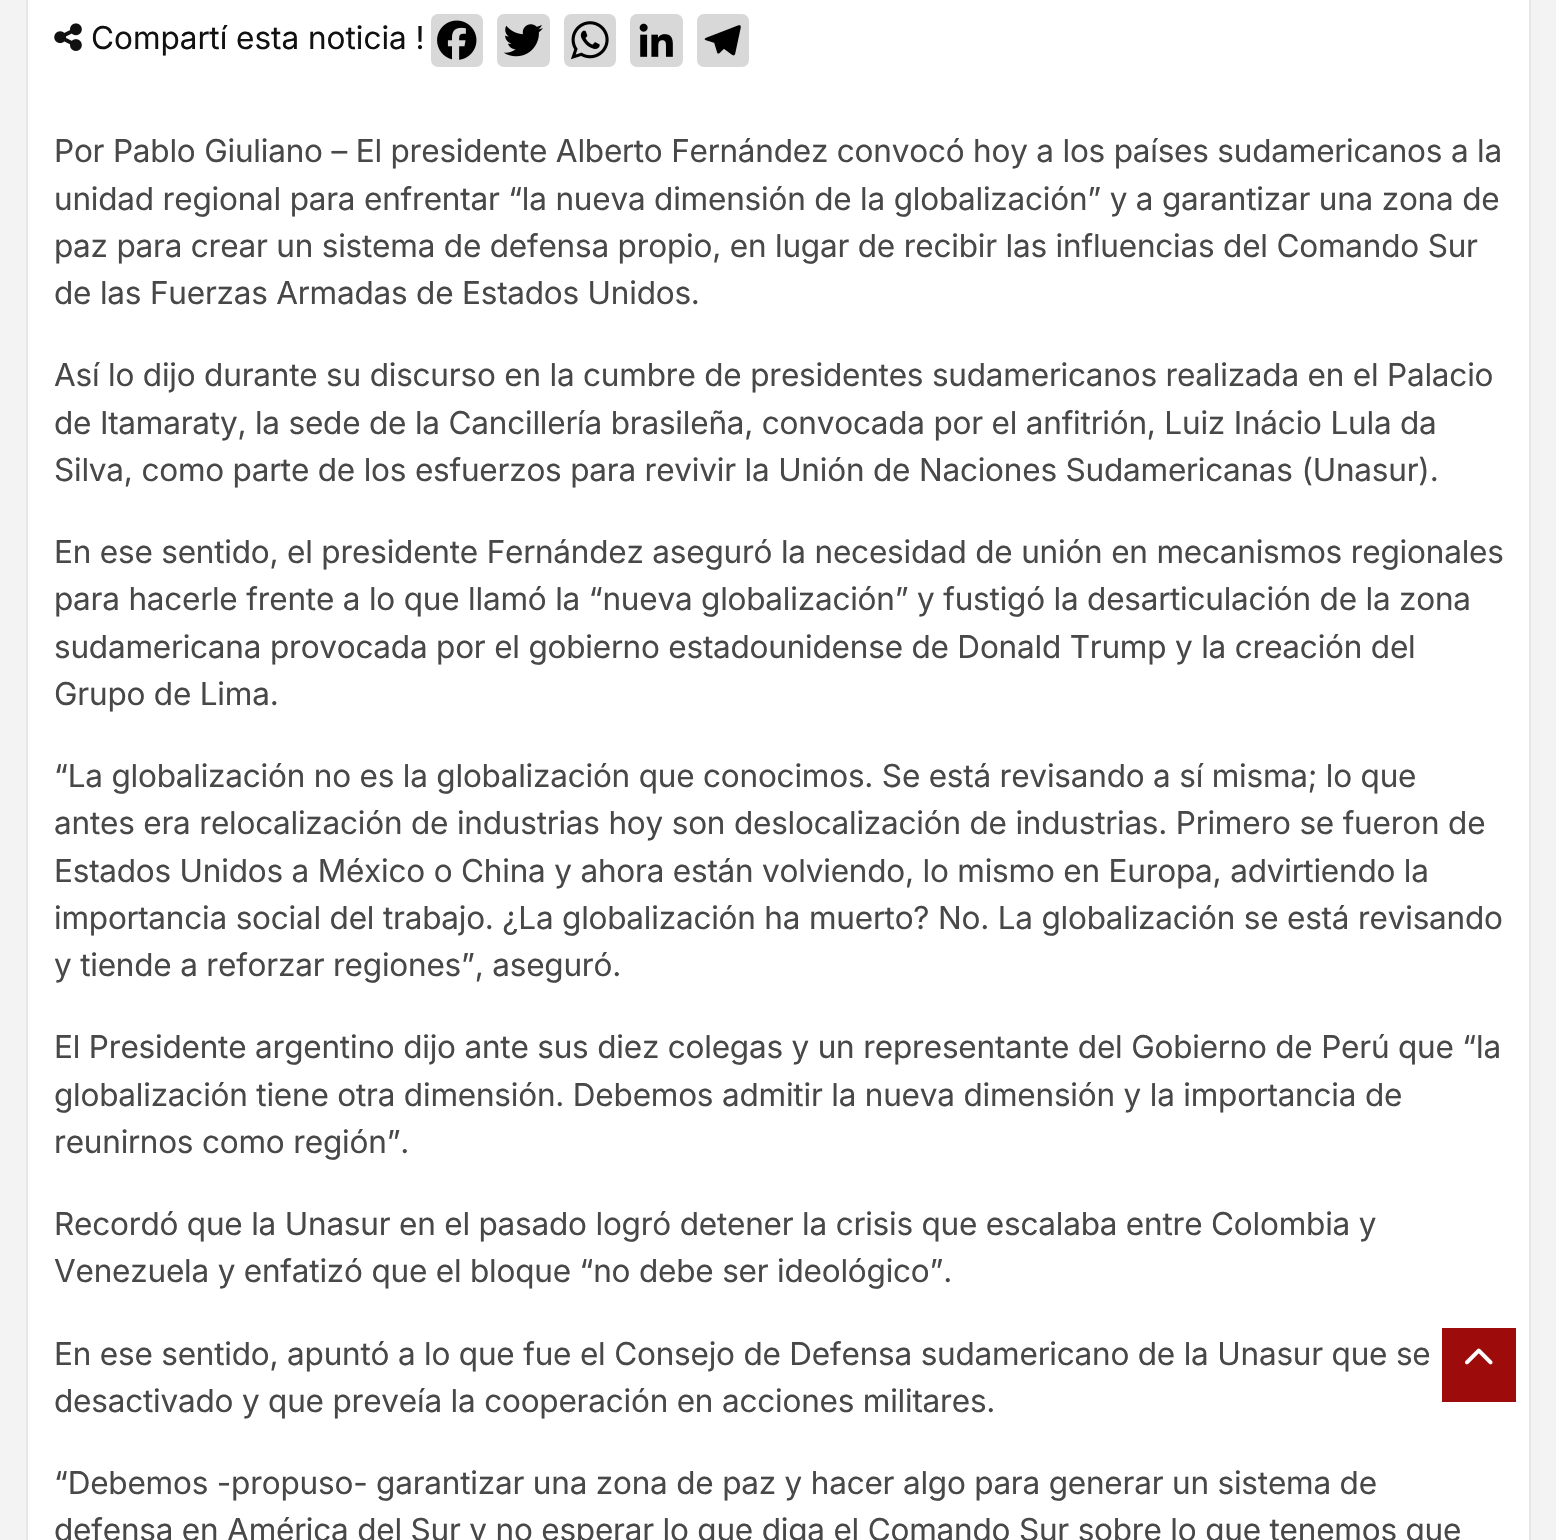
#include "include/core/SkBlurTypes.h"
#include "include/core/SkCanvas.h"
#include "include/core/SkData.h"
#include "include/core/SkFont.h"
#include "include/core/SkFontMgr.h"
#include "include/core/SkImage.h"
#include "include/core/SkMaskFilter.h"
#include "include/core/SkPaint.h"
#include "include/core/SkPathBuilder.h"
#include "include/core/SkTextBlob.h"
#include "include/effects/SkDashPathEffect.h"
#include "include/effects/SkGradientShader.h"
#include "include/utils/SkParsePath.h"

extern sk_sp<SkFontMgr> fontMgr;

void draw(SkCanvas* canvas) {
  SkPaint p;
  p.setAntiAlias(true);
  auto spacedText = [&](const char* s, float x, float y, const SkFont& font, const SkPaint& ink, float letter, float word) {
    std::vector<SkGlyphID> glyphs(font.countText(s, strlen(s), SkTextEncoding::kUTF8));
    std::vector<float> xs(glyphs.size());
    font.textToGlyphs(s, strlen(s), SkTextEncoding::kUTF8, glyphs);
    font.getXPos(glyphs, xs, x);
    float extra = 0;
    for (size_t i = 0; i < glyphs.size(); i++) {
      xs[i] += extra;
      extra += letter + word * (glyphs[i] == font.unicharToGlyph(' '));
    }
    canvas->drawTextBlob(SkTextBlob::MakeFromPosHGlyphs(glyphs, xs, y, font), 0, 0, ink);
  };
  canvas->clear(SkColorSetRGB(243, 243, 243));
  p.setColor(SK_ColorWHITE);
  canvas->drawRect(SkRect::MakeLTRB(27, -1, 1530, 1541), p);
  p.setStyle(SkPaint::kStroke_Style);
  p.setStrokeWidth(2);
  p.setColor(SkColorSetRGB(230, 230, 230));
  canvas->drawRect(SkRect::MakeLTRB(27, -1, 1530, 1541), p);
  canvas->drawImageRect(SkImages::DeferredFromEncodedData(SkData::MakeFromFileName("images/1.png")), SkRect::MakeLTRB(54, 23, 82, 51), SkSamplingOptions());
  p.setStyle(SkPaint::kFill_Style);
  p.setColor(SkColorSetRGB(216, 216, 216));
  canvas->drawRoundRect(SkRect::MakeLTRB(431, 14, 483, 67), 7, 7, p);
  canvas->drawImageRect(SkImages::DeferredFromEncodedData(SkData::MakeFromFileName("images/2.png")), SkRect::MakeLTRB(437, 20, 477, 60), SkSamplingOptions());
  canvas->drawRoundRect(SkRect::MakeLTRB(497, 14, 550, 67), 7, 7, p);
  canvas->drawImageRect(SkImages::DeferredFromEncodedData(SkData::MakeFromFileName("images/3.png")), SkRect::MakeLTRB(503, 24, 543, 57), SkSamplingOptions());
  canvas->drawRoundRect(SkRect::MakeLTRB(564, 14, 616, 67), 7, 7, p);
  canvas->drawImageRect(SkImages::DeferredFromEncodedData(SkData::MakeFromFileName("images/4.png")), SkRect::MakeLTRB(571, 21, 609, 60), SkSamplingOptions());
  canvas->drawRoundRect(SkRect::MakeLTRB(630, 14, 683, 67), 7, 7, p);
  canvas->drawImageRect(SkImages::DeferredFromEncodedData(SkData::MakeFromFileName("images/5.png")), SkRect::MakeLTRB(639, 23, 673, 57), SkSamplingOptions());
  canvas->drawRoundRect(SkRect::MakeLTRB(697, 14, 749, 67), 7, 7, p);
  canvas->drawImageRect(SkImages::DeferredFromEncodedData(SkData::MakeFromFileName("images/6.png")), SkRect::MakeLTRB(704, 25, 741, 56), SkSamplingOptions());
  p.setColor(SkColorSetRGB(158, 11, 11));
  canvas->drawRect(SkRect::MakeLTRB(1442, 1328, 1516, 1402), p);
  canvas->drawImageRect(SkImages::DeferredFromEncodedData(SkData::MakeFromFileName("images/7.png")), SkRect::MakeLTRB(1465, 1348, 1493, 1365), SkSamplingOptions());
  SkFont font1(fontMgr->matchFamilyStyle("Inter", SkFontStyle::Normal()), 31.5f);
  font1.setSubpixel(true);
  p.setColor(SkColorSetRGB(17, 17, 17));
  canvas->drawString("Compartí esta noticia !", 91, 49, font1, p);
  p.setColor(SkColorSetRGB(72, 72, 72));
  spacedText("Por Pablo Giuliano – El presidente Alberto Fernández convocó hoy a los países sudamericanos a la", 54, 162, font1, p, -0.2f, 0);
  spacedText("unidad regional para enfrentar “la nueva dimensión de la globalización” y a garantizar una zona de", 54, 210, font1, p, -0.2f, 0);
  spacedText("paz para crear un sistema de defensa propio, en lugar de recibir las influencias del Comando Sur", 54, 257, font1, p, -0.2f, 0);
  spacedText("de las Fuerzas Armadas de Estados Unidos.", 54, 304, font1, p, -0.2f, 0);
  spacedText("Así lo dijo durante su discurso en la cumbre de presidentes sudamericanos realizada en el Palacio", 54, 386, font1, p, -0.2f, 0);
  spacedText("de Itamaraty, la sede de la Cancillería brasileña, convocada por el anfitrión, Luiz Inácio Lula da", 54, 434, font1, p, -0.2f, 0);
  spacedText("Silva, como parte de los esfuerzos para revivir la Unión de Naciones Sudamericanas (Unasur).", 54, 481, font1, p, -0.2f, 0);
  spacedText("En ese sentido, el presidente Fernández aseguró la necesidad de unión en mecanismos regionales", 54, 563, font1, p, -0.2f, 0);
  spacedText("para hacerle frente a lo que llamó la “nueva globalización” y fustigó la desarticulación de la zona", 54, 610, font1, p, -0.2f, 0);
  spacedText("sudamericana provocada por el gobierno estadounidense de Donald Trump y la creación del", 54, 658, font1, p, -0.2f, 0);
  spacedText("Grupo de Lima.", 54, 705, font1, p, -0.2f, 0);
  spacedText("“La globalización no es la globalización que conocimos. Se está revisando a sí misma; lo que", 54, 787, font1, p, -0.2f, 0);
  spacedText("antes era relocalización de industrias hoy son deslocalización de industrias. Primero se fueron de", 54, 834, font1, p, -0.2f, 0);
  spacedText("Estados Unidos a México o China y ahora están volviendo, lo mismo en Europa, advirtiendo la", 54, 882, font1, p, -0.2f, 0);
  spacedText("importancia social del trabajo. ¿La globalización ha muerto? No. La globalización se está revisando", 54, 929, font1, p, -0.2f, 0);
  spacedText("y tiende a reforzar regiones”, aseguró.", 54, 976, font1, p, -0.2f, 0);
  spacedText("El Presidente argentino dijo ante sus diez colegas y un representante del Gobierno de Perú que “la", 54, 1058, font1, p, -0.2f, 0);
  spacedText("globalización tiene otra dimensión. Debemos admitir la nueva dimensión y la importancia de", 54, 1106, font1, p, -0.2f, 0);
  spacedText("reunirnos como región”.", 54, 1153, font1, p, -0.2f, 0);
  spacedText("Recordó que la Unasur en el pasado logró detener la crisis que escalaba entre Colombia y", 54, 1235, font1, p, -0.2f, 0);
  spacedText("Venezuela y enfatizó que el bloque “no debe ser ideológico”.", 54, 1282, font1, p, -0.2f, 0);
  spacedText("En ese sentido, apuntó a lo que fue el Consejo de Defensa sudamericano de la Unasur que se", 54, 1365, font1, p, -0.2f, 0);
  spacedText("desactivado y que preveía la cooperación en acciones militares.", 54, 1412, font1, p, -0.2f, 0);
  spacedText("“Debemos -propuso- garantizar una zona de paz y hacer algo para generar un sistema de", 54, 1494, font1, p, -0.2f, 0);
  spacedText("defensa en América del Sur y no esperar lo que diga el Comando Sur sobre lo que tenemos que", 54, 1541, font1, p, -0.2f, 0);
}
